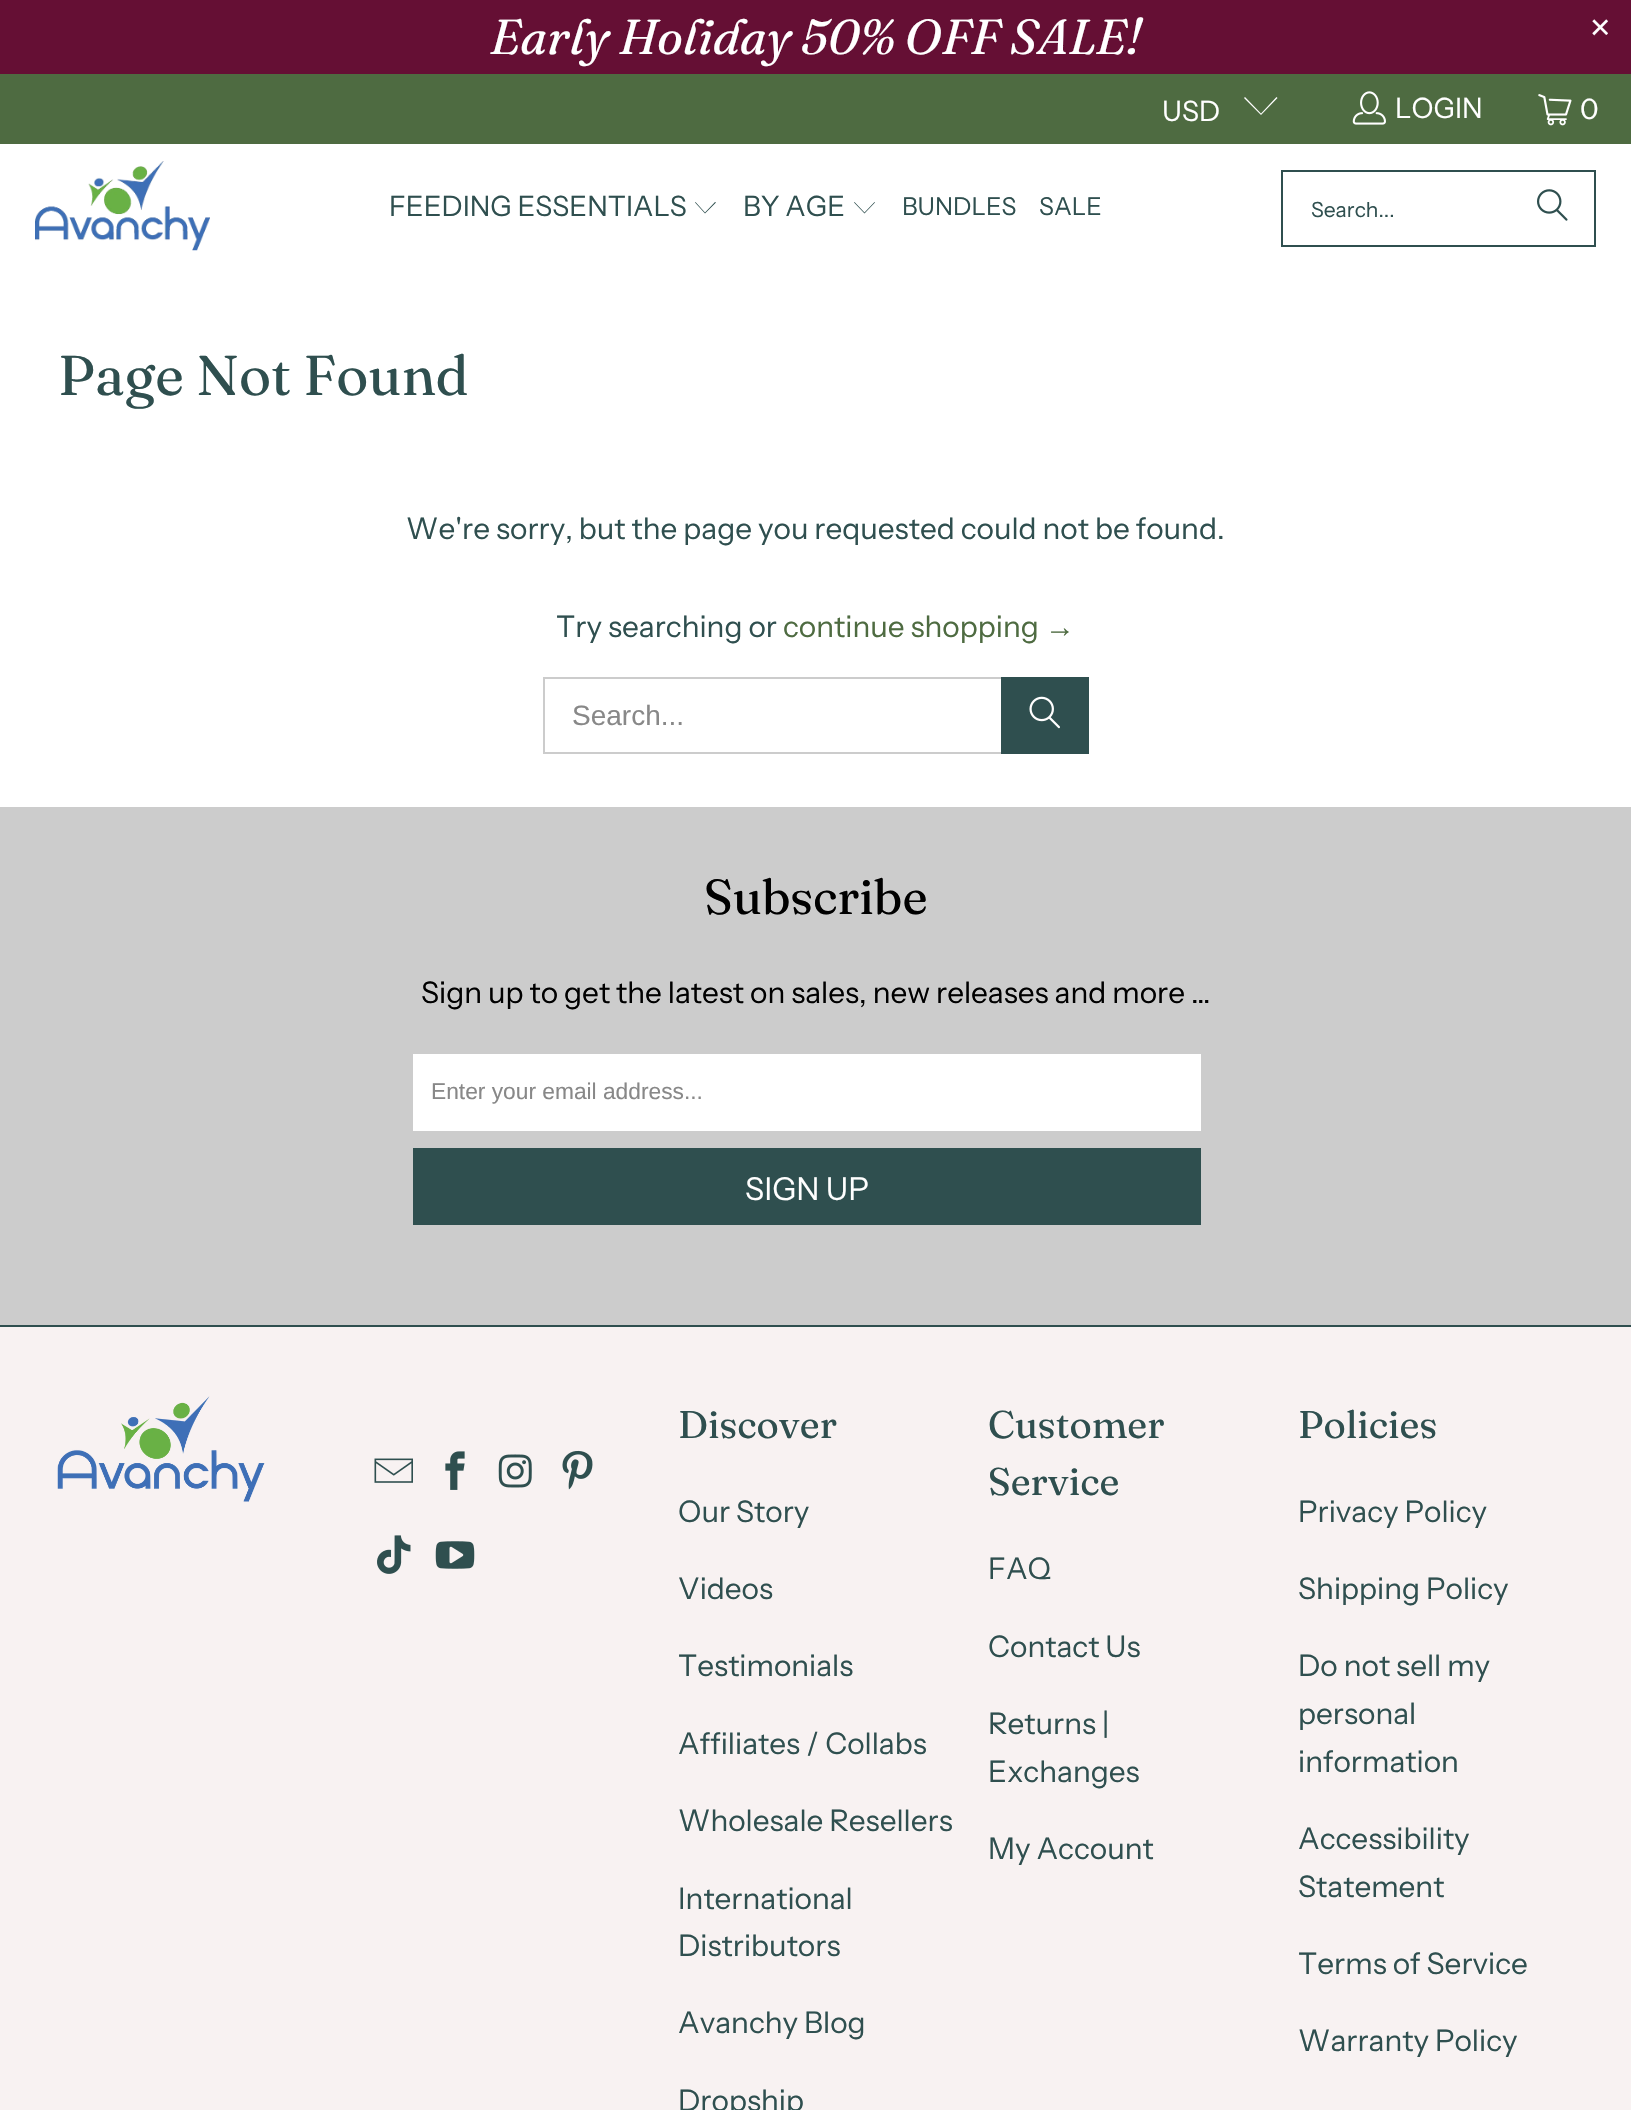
#include "include/core/SkBlurTypes.h"
#include "include/core/SkCanvas.h"
#include "include/core/SkData.h"
#include "include/core/SkFont.h"
#include "include/core/SkFontMgr.h"
#include "include/core/SkImage.h"
#include "include/core/SkMaskFilter.h"
#include "include/core/SkPaint.h"
#include "include/core/SkPathBuilder.h"
#include "include/core/SkTextBlob.h"
#include "include/effects/SkDashPathEffect.h"
#include "include/effects/SkGradientShader.h"
#include "include/utils/SkParsePath.h"

extern sk_sp<SkFontMgr> fontMgr;

void draw(SkCanvas* canvas) {
  SkPaint p;
  p.setAntiAlias(true);
  canvas->clear(SK_ColorWHITE);
  p.setColor(SkColorSetRGB(101, 15, 52));
  canvas->drawRect(SkRect::MakeLTRB(0, 0, 1631, 74), p);
  p.setColor(SkColorSetRGB(78, 107, 65));
  canvas->drawRect(SkRect::MakeLTRB(0, 74, 1631, 144), p);
  p.setColor(SK_ColorWHITE);
  canvas->drawPath(SkPathBuilder().moveTo(1261, 115).lineTo(1244, 98).lineTo(1245, 97).lineTo(1261, 113.5f).lineTo(1276.5f, 97).lineTo(1277.5f, 98).close().detach(), p);
  canvas->drawImageRect(SkImages::DeferredFromEncodedData(SkData::MakeFromFileName("images/1.png")), SkRect::MakeLTRB(1352, 91, 1386, 125), SkSamplingOptions());
  canvas->drawImageRect(SkImages::DeferredFromEncodedData(SkData::MakeFromFileName("images/2.png")), SkRect::MakeLTRB(1538, 94, 1572, 126), SkSamplingOptions());
  canvas->drawImageRect(SkImages::DeferredFromEncodedData(SkData::MakeFromFileName("images/3.png")), SkRect::MakeLTRB(35, 161, 210, 251), SkSamplingOptions());
  p.setColor(SkColorSetRGB(47, 79, 79));
  canvas->drawPath(SkPathBuilder().moveTo(705, 213.5f).lineTo(695, 202.5f).lineTo(695.5f, 202).lineTo(705, 212.5f).lineTo(715, 202).lineTo(716, 202.5f).close().detach(), p);
  canvas->drawPath(SkPathBuilder().moveTo(864.5f, 213.5f).lineTo(854, 202.5f).lineTo(854.5f, 202).lineTo(864.5f, 212.5f).lineTo(874.5f, 202).lineTo(875, 202.5f).close().detach(), p);
  p.setStyle(SkPaint::kStroke_Style);
  p.setStrokeWidth(2);
  canvas->drawRect(SkRect::MakeLTRB(1282, 171, 1595, 246), p);
  canvas->drawImageRect(SkImages::DeferredFromEncodedData(SkData::MakeFromFileName("images/4.png")), SkRect::MakeLTRB(1537, 189, 1568, 221), SkSamplingOptions());
  p.setColor(SkColorSetRGB(204, 204, 204));
  canvas->drawRect(SkRect::MakeLTRB(544, 678, 1088, 753), p);
  p.setStyle(SkPaint::kFill_Style);
  p.setColor(SkColorSetRGB(47, 79, 79));
  canvas->drawRect(SkRect::MakeLTRB(1001, 677, 1089, 754), p);
  canvas->drawImageRect(SkImages::DeferredFromEncodedData(SkData::MakeFromFileName("images/5.png")), SkRect::MakeLTRB(1029, 696, 1060, 729), SkSamplingOptions());
  p.setColor(SkColorSetRGB(204, 204, 204));
  canvas->drawRect(SkRect::MakeLTRB(0, 807, 1631, 1325), p);
  p.setColor(SK_ColorWHITE);
  canvas->drawRect(SkRect::MakeLTRB(413, 1054, 1201, 1131), p);
  p.setColor(SkColorSetRGB(47, 79, 79));
  canvas->drawRect(SkRect::MakeLTRB(413, 1148, 1201, 1225), p);
  p.setColor(SkColorSetRGB(248, 242, 242));
  canvas->drawRect(SkRect::MakeLTRB(0, 1327, 1631, 2110), p);
  p.setColor(SkColorSetRGB(47, 79, 79));
  canvas->drawRect(SkRect::MakeLTRB(0, 1325, 1631, 1327), p);
  canvas->drawImageRect(SkImages::DeferredFromEncodedData(SkData::MakeFromFileName("images/6.png")), SkRect::MakeLTRB(57, 1396, 265, 1502), SkSamplingOptions());
  canvas->drawImageRect(SkImages::DeferredFromEncodedData(SkData::MakeFromFileName("images/7.png")), SkRect::MakeLTRB(374, 1458, 413, 1483), SkSamplingOptions());
  canvas->drawImageRect(SkImages::DeferredFromEncodedData(SkData::MakeFromFileName("images/8.png")), SkRect::MakeLTRB(445, 1451, 465, 1490), SkSamplingOptions());
  canvas->drawImageRect(SkImages::DeferredFromEncodedData(SkData::MakeFromFileName("images/9.png")), SkRect::MakeLTRB(498, 1454, 532, 1488), SkSamplingOptions());
  canvas->drawImageRect(SkImages::DeferredFromEncodedData(SkData::MakeFromFileName("images/10.png")), SkRect::MakeLTRB(562, 1450, 593, 1490), SkSamplingOptions());
  canvas->drawImageRect(SkImages::DeferredFromEncodedData(SkData::MakeFromFileName("images/11.png")), SkRect::MakeLTRB(377, 1535, 411, 1574), SkSamplingOptions());
  canvas->drawImageRect(SkImages::DeferredFromEncodedData(SkData::MakeFromFileName("images/12.png")), SkRect::MakeLTRB(435, 1541, 475, 1569), SkSamplingOptions());
  SkFont font1(fontMgr->matchFamilyStyle("Fraunces", SkFontStyle::Italic()), 49);
  font1.setSubpixel(true);
  p.setColor(SK_ColorWHITE);
  canvas->drawString("Early Holiday 50% OFF SALE!", 490, 54, font1, p);
  SkFont font2(fontMgr->matchFamilyStyle("Liberation Sans", SkFontStyle::Normal()), 35);
  font2.setSubpixel(true);
  canvas->drawString("×", 1590, 39, font2, p);
  SkFont font3(fontMgr->matchFamilyStyle("Instrument Sans", SkFontStyle::Normal()), 28);
  font3.setSubpixel(true);
  canvas->drawString("USD", 1162, 121, font3, p);
  canvas->drawString("LOGIN", 1395, 118, font3, p);
  canvas->drawString("0", 1580, 119, font3, p);
  p.setColor(SkColorSetRGB(47, 79, 79));
  canvas->drawString("FEEDING ESSENTIALS", 389, 216, font3, p);
  canvas->drawString("BY AGE", 743, 216, font3, p);
  SkFont font4(fontMgr->matchFamilyStyle("Instrument Sans", SkFontStyle::Normal()), 24.5f);
  font4.setSubpixel(true);
  canvas->drawString("BUNDLES", 902, 215, font4, p);
  canvas->drawString("SALE", 1039, 215, font4, p);
  SkFont font5(fontMgr->matchFamilyStyle("Instrument Sans", SkFontStyle::Normal()), 21);
  font5.setSubpixel(true);
  canvas->drawString("Search...", 1311, 217, font5, p);
  SkFont font6(fontMgr->matchFamilyStyle("Fraunces", SkFontStyle::Normal()), 56);
  font6.setSubpixel(true);
  canvas->drawString("Page Not Found", 58, 395, font6, p);
  SkFont font7(fontMgr->matchFamilyStyle("Instrument Sans", SkFontStyle::Normal()), 29.75f);
  font7.setSubpixel(true);
  canvas->drawString("We're sorry, but the page you requested could not be found.", 406, 539, font7, p);
  canvas->drawString("Try searching or", 556, 637, font7, p);
  p.setColor(SkColorSetRGB(78, 107, 65));
  canvas->drawString("continue shopping", 783, 637, font7, p);
  SkFont font8(fontMgr->matchFamilyStyle("Liberation Sans", SkFontStyle::Normal()), 29.75f);
  font8.setSubpixel(true);
  canvas->drawString("→", 1045, 637, font8, p);
  SkFont font9(fontMgr->matchFamilyStyle("Liberation Sans", SkFontStyle::Normal()), 28);
  font9.setSubpixel(true);
  p.setColor(SkColorSetRGB(136, 136, 136));
  canvas->drawString("Search...", 572, 725, font9, p);
  SkFont font10(fontMgr->matchFamilyStyle("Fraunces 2", SkFontStyle::Normal()), 49);
  font10.setSubpixel(true);
  p.setColor(SK_ColorBLACK);
  canvas->drawString("Subscribe", 704, 914, font10, p);
  canvas->drawString("Sign up to get the latest on sales, new releases and more …", 421, 1003, font7, p);
  SkFont font11(fontMgr->matchFamilyStyle("Liberation Sans", SkFontStyle::Normal()), 22.75f);
  font11.setSubpixel(true);
  p.setColor(SkColorSetRGB(136, 136, 136));
  canvas->drawString("Enter your email address...", 431, 1099, font11, p);
  SkFont font12(fontMgr->matchFamilyStyle("Instrument Sans", SkFontStyle::Normal()), 31.5f);
  font12.setSubpixel(true);
  p.setColor(SK_ColorWHITE);
  canvas->drawString("SIGN UP", 745, 1200, font12, p);
  SkFont font13(fontMgr->matchFamilyStyle("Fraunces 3", SkFontStyle::Normal()), 38.5f);
  font13.setSubpixel(true);
  p.setColor(SkColorSetRGB(47, 79, 79));
  canvas->drawString("Discover", 678, 1438, font13, p);
  canvas->drawString("Our Story", 678, 1522, font7, p);
  canvas->drawString("Videos", 678, 1599, font7, p);
  canvas->drawString("Testimonials", 678, 1676, font7, p);
  canvas->drawString("Affiliates / Collabs", 678, 1754, font7, p);
  canvas->drawString("Wholesale Resellers", 678, 1831, font7, p);
  canvas->drawString("International", 678, 1909, font7, p);
  canvas->drawString("Distributors", 678, 1956, font7, p);
  canvas->drawString("Avanchy Blog", 678, 2033, font7, p);
  canvas->drawString("Dropship", 678, 2111, font7, p);
  canvas->drawString("Customer", 988, 1438, font13, p);
  canvas->drawString("Service", 988, 1495, font13, p);
  canvas->drawString("FAQ", 988, 1579, font7, p);
  canvas->drawString("Contact Us", 988, 1657, font7, p);
  canvas->drawString("Returns |", 988, 1734, font7, p);
  canvas->drawString("Exchanges", 988, 1782, font7, p);
  canvas->drawString("My Account", 988, 1859, font7, p);
  canvas->drawString("Policies", 1298, 1438, font13, p);
  canvas->drawString("Privacy Policy", 1298, 1522, font7, p);
  canvas->drawString("Shipping Policy", 1298, 1599, font7, p);
  canvas->drawString("Do not sell my", 1298, 1676, font7, p);
  canvas->drawString("personal", 1298, 1724, font7, p);
  canvas->drawString("information", 1298, 1772, font7, p);
  canvas->drawString("Accessibility", 1298, 1849, font7, p);
  canvas->drawString("Statement", 1298, 1897, font7, p);
  canvas->drawString("Terms of Service", 1298, 1974, font7, p);
  canvas->drawString("Warranty Policy", 1298, 2051, font7, p);
}
